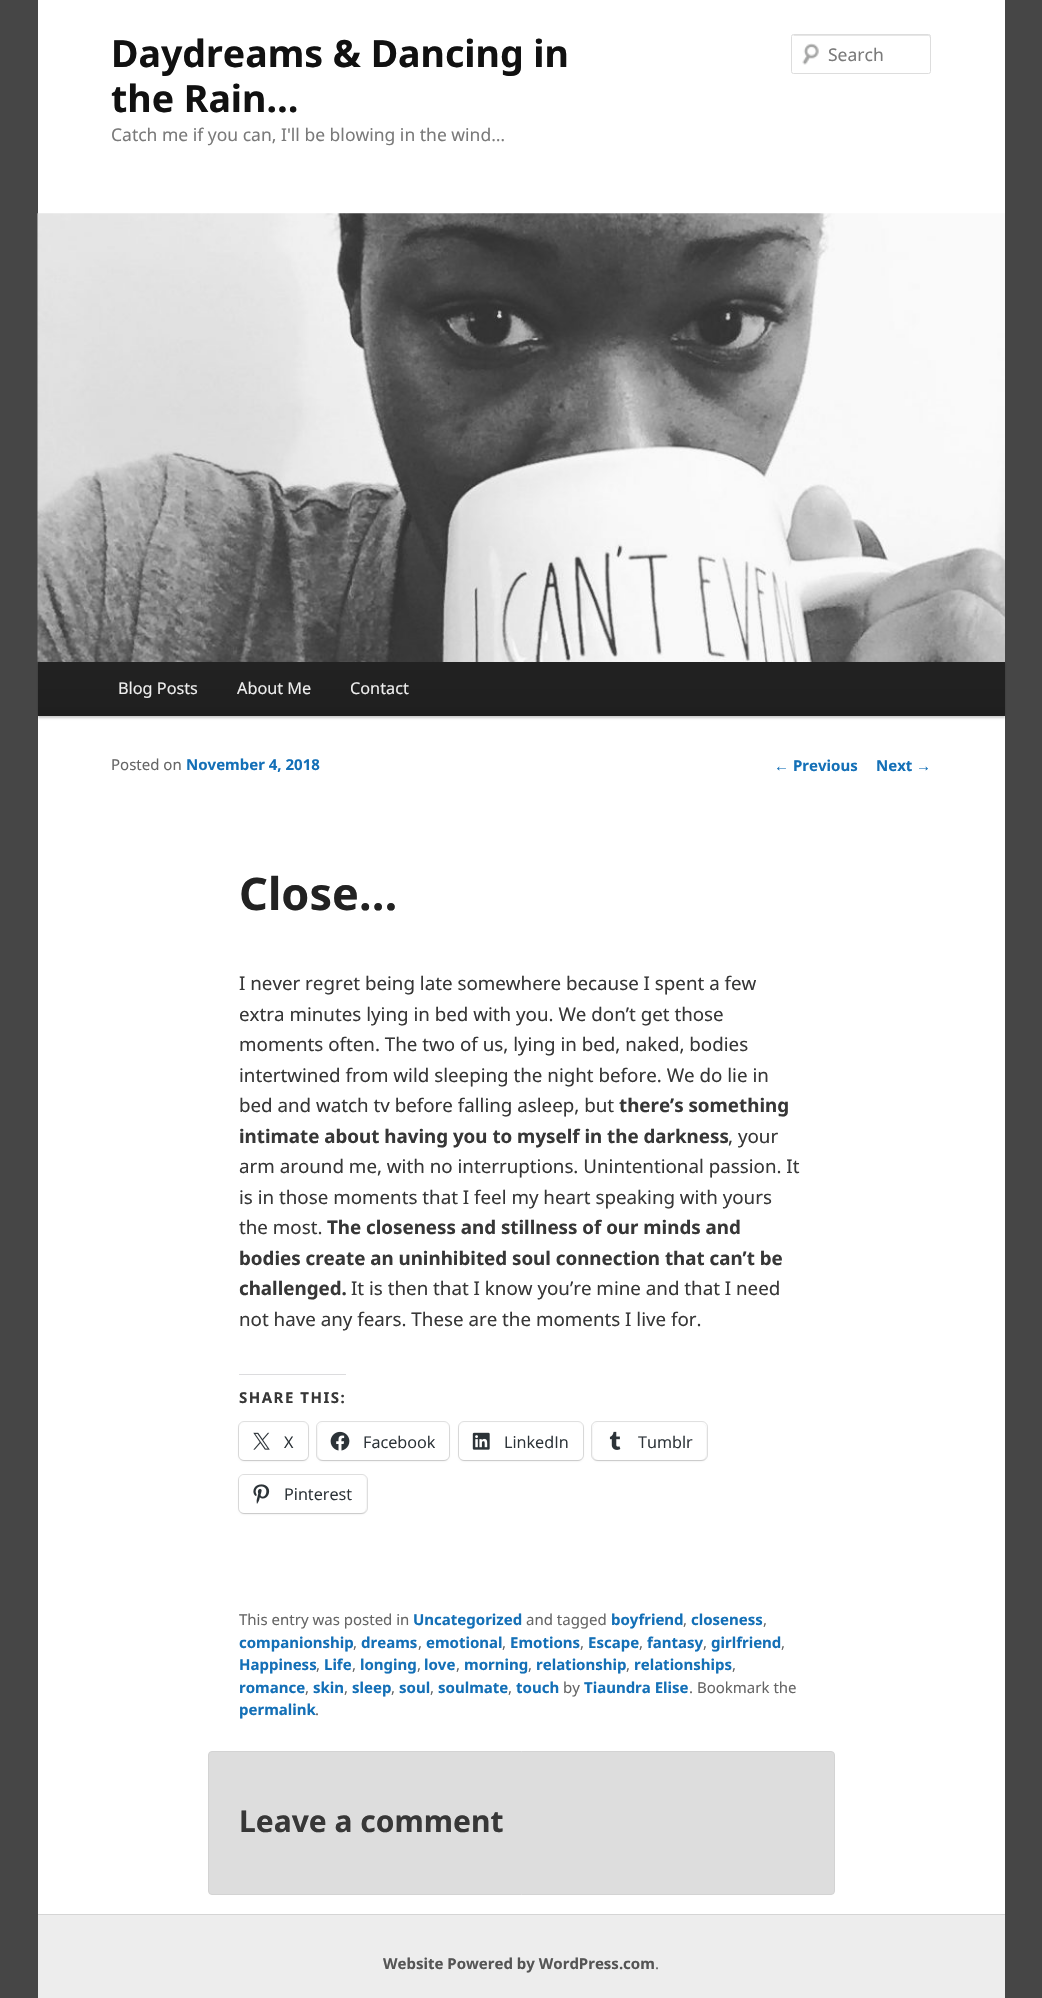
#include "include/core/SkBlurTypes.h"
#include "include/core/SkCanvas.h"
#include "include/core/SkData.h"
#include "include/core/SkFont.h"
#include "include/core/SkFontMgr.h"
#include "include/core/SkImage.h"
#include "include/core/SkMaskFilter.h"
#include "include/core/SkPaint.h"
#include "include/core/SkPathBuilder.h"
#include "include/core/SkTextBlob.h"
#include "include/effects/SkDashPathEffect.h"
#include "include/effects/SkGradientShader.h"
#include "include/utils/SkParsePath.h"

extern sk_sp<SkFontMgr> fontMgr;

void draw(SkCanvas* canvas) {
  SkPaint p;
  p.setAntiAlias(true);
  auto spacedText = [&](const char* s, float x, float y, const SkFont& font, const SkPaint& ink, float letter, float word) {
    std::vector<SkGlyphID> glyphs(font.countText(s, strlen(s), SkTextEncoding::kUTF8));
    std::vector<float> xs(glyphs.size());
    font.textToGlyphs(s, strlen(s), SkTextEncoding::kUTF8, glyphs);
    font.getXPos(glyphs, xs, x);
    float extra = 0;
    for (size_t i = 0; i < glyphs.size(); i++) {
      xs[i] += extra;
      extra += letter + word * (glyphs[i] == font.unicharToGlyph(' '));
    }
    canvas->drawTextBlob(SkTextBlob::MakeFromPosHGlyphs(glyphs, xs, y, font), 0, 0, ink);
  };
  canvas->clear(SkColorSetRGB(70, 70, 70));
  p.setColor(SK_ColorWHITE);
  canvas->drawRect(SkRect::MakeLTRB(38, 0, 1005, 1914), p);
  canvas->drawImageRect(SkImages::DeferredFromEncodedData(SkData::MakeFromFileName("images/1.png")), SkRect::MakeLTRB(802, 43, 819, 65), SkSamplingOptions());
  p.setColor(SkColorSetRGB(230, 230, 230));
  canvas->drawPath(SkPathBuilder().moveTo(794, 36).lineTo(929, 36).lineTo(930, 38).cubicTo(930, 37, 930, 35, 929, 35).lineTo(794, 35).lineTo(793, 36).close().detach(), p);
  p.setStyle(SkPaint::kStroke_Style);
  p.setStrokeWidth(1);
  p.setColor(SkColorSetRGB(221, 221, 221));
  canvas->drawRoundRect(SkRect::MakeLTRB(791.5f, 34.5f, 930.5f, 73.5f), 2, 2, p);
  p.setStyle(SkPaint::kFill_Style);
  p.setColor(SkColorSetARGB(51, 0, 0, 0));
  p.setMaskFilter(SkMaskFilter::MakeBlur(kNormal_SkBlurStyle, 1));
  canvas->drawRect(SkRect::MakeLTRB(38, 663, 1005, 718), p);
  p.setMaskFilter(nullptr);
  canvas->drawImageRect(SkImages::DeferredFromEncodedData(SkData::MakeFromFileName("images/2.png")), SkRect::MakeLTRB(37, 213, 1005, 662), SkSamplingOptions());
  {
    const SkColor colors[] = {SkColorSetRGB(34, 34, 34), SkColorSetRGB(31, 31, 31)};
    const float stops[] = {0, 1};
    const SkPoint ends[] = {{521, 661}, {521, 716}};
    p.setShader(SkGradientShader::MakeLinear(ends, colors, stops, 2, SkTileMode::kClamp));
    p.setAlpha(255);
  }
  canvas->drawRect(SkRect::MakeLTRB(38, 662, 1005, 716), p);
  p.setShader(nullptr);
  p.setColor(SkColorSetRGB(220, 220, 222));
  canvas->drawRect(SkRect::MakeLTRB(239, 1374, 346, 1375), p);
  p.setStyle(SkPaint::kStroke_Style);
  p.setColor(SkColorSetRGB(224, 224, 224));
  canvas->drawRoundRect(SkRect::MakeLTRB(238.5f, 1421.5f, 308.5f, 1460.5f), 5.5f, 5.5f, p);
  p.setStyle(SkPaint::kFill_Style);
  p.setColor(SkColorSetARGB(31, 0, 0, 0));
  p.setMaskFilter(SkMaskFilter::MakeBlur(kNormal_SkBlurStyle, 1));
  canvas->drawRoundRect(SkRect::MakeLTRB(239, 1424, 308, 1461), 5, 5, p);
  p.setMaskFilter(nullptr);
  p.setColor(SK_ColorWHITE);
  canvas->drawRoundRect(SkRect::MakeLTRB(239, 1423, 308, 1460), 5, 5, p);
  canvas->drawImageRect(SkImages::DeferredFromEncodedData(SkData::MakeFromFileName("images/3.png")), SkRect::MakeLTRB(253, 1432, 270, 1450), SkSamplingOptions());
  p.setStyle(SkPaint::kStroke_Style);
  p.setColor(SkColorSetRGB(224, 224, 224));
  canvas->drawRoundRect(SkRect::MakeLTRB(316.5f, 1421.5f, 449.5f, 1460.5f), 5.5f, 5.5f, p);
  p.setStyle(SkPaint::kFill_Style);
  p.setColor(SkColorSetARGB(31, 0, 0, 0));
  p.setMaskFilter(SkMaskFilter::MakeBlur(kNormal_SkBlurStyle, 1));
  canvas->drawRoundRect(SkRect::MakeLTRB(318, 1424, 449, 1461), 5, 5, p);
  p.setMaskFilter(nullptr);
  p.setColor(SK_ColorWHITE);
  canvas->drawRoundRect(SkRect::MakeLTRB(318, 1423, 449, 1460), 5, 5, p);
  canvas->drawImageRect(SkImages::DeferredFromEncodedData(SkData::MakeFromFileName("images/4.png")), SkRect::MakeLTRB(330, 1431, 350, 1451), SkSamplingOptions());
  p.setStyle(SkPaint::kStroke_Style);
  p.setColor(SkColorSetRGB(224, 224, 224));
  canvas->drawRoundRect(SkRect::MakeLTRB(458.5f, 1421.5f, 583.5f, 1460.5f), 5.5f, 5.5f, p);
  p.setStyle(SkPaint::kFill_Style);
  p.setColor(SkColorSetARGB(31, 0, 0, 0));
  p.setMaskFilter(SkMaskFilter::MakeBlur(kNormal_SkBlurStyle, 1));
  canvas->drawRoundRect(SkRect::MakeLTRB(459, 1424, 583, 1461), 5, 5, p);
  p.setMaskFilter(nullptr);
  p.setColor(SK_ColorWHITE);
  canvas->drawRoundRect(SkRect::MakeLTRB(459, 1423, 583, 1460), 5, 5, p);
  canvas->drawImageRect(SkImages::DeferredFromEncodedData(SkData::MakeFromFileName("images/5.png")), SkRect::MakeLTRB(472, 1432, 490, 1450), SkSamplingOptions());
  p.setStyle(SkPaint::kStroke_Style);
  p.setColor(SkColorSetRGB(224, 224, 224));
  canvas->drawRoundRect(SkRect::MakeLTRB(591.5f, 1421.5f, 707.5f, 1460.5f), 5.5f, 5.5f, p);
  p.setStyle(SkPaint::kFill_Style);
  p.setColor(SkColorSetARGB(31, 0, 0, 0));
  p.setMaskFilter(SkMaskFilter::MakeBlur(kNormal_SkBlurStyle, 1));
  canvas->drawRoundRect(SkRect::MakeLTRB(593, 1424, 706, 1461), 5, 5, p);
  p.setMaskFilter(nullptr);
  p.setColor(SK_ColorWHITE);
  canvas->drawRoundRect(SkRect::MakeLTRB(593, 1423, 706, 1460), 5, 5, p);
  canvas->drawImageRect(SkImages::DeferredFromEncodedData(SkData::MakeFromFileName("images/6.png")), SkRect::MakeLTRB(609, 1431, 621, 1450), SkSamplingOptions());
  p.setStyle(SkPaint::kStroke_Style);
  p.setColor(SkColorSetRGB(224, 224, 224));
  canvas->drawRoundRect(SkRect::MakeLTRB(238.5f, 1474.5f, 367.5f, 1513.5f), 5.5f, 5.5f, p);
  p.setStyle(SkPaint::kFill_Style);
  p.setColor(SkColorSetARGB(31, 0, 0, 0));
  p.setMaskFilter(SkMaskFilter::MakeBlur(kNormal_SkBlurStyle, 1));
  canvas->drawRoundRect(SkRect::MakeLTRB(239, 1476, 366, 1514), 5, 5, p);
  p.setMaskFilter(nullptr);
  p.setColor(SK_ColorWHITE);
  canvas->drawRoundRect(SkRect::MakeLTRB(239, 1475, 366, 1513), 5, 5, p);
  canvas->drawImageRect(SkImages::DeferredFromEncodedData(SkData::MakeFromFileName("images/7.png")), SkRect::MakeLTRB(253, 1484, 270, 1504), SkSamplingOptions());
  p.setColor(SkColorSetRGB(221, 221, 221));
  canvas->drawRoundRect(SkRect::MakeLTRB(208.5f, 1751.5f, 834.5f, 1894.5f), 3.5f, 3.5f, p);
  p.setStyle(SkPaint::kStroke_Style);
  p.setColor(SkColorSetRGB(211, 211, 211));
  canvas->drawRoundRect(SkRect::MakeLTRB(208.5f, 1751.5f, 834.5f, 1894.5f), 3.5f, 3.5f, p);
  p.setStyle(SkPaint::kFill_Style);
  p.setColor(SkColorSetRGB(237, 237, 237));
  canvas->drawRect(SkRect::MakeLTRB(38, 1915, 1005, 1998), p);
  p.setColor(SkColorSetRGB(213, 213, 213));
  canvas->drawRect(SkRect::MakeLTRB(38, 1914, 1005, 1915), p);
  SkFont font1(fontMgr->matchFamilyStyle("Noto Sans", SkFontStyle::Bold()), 37.5f);
  font1.setSubpixel(true);
  p.setColor(SkColorSetRGB(17, 17, 17));
  canvas->drawString("Daydreams & Dancing in", 111, 67, font1, p);
  canvas->drawString("the Rain…", 111, 112, font1, p);
  SkFont font2(fontMgr->matchFamilyStyle("Noto Sans", SkFontStyle::Normal()), 17.5f);
  font2.setSubpixel(true);
  p.setColor(SkColorSetRGB(122, 122, 122));
  canvas->drawString("Catch me if you can, I'll be blowing in the wind…", 111, 141, font2, p);
  canvas->drawString("Search", 828, 61, font2, p);
  SkFont font3(fontMgr->matchFamilyStyle("Noto Sans", SkFontStyle::Normal()), 16.25f);
  font3.setSubpixel(true);
  p.setColor(SkColorSetRGB(238, 238, 238));
  canvas->drawString("Blog Posts", 118, 694, font3, p);
  canvas->drawString("About Me", 237, 694, font3, p);
  canvas->drawString("Contact", 350, 694, font3, p);
  SkFont font4(fontMgr->matchFamilyStyle("Noto Sans", SkFontStyle::Normal()), 15);
  font4.setSubpixel(true);
  p.setColor(SkColorSetRGB(102, 102, 102));
  canvas->drawString("Posted on", 111, 770, font4, p);
  SkFont font5(fontMgr->matchFamilyStyle("Noto Sans", SkFontStyle::Bold()), 15);
  font5.setSubpixel(true);
  p.setColor(SkColorSetRGB(20, 112, 183));
  canvas->drawString("November 4, 2018", 186, 770, font5, p);
  SkFont font6(fontMgr->matchFamilyStyle("Noto Sans", SkFontStyle::Bold()), 45);
  font6.setSubpixel(true);
  p.setColor(SkColorSetRGB(34, 34, 34));
  canvas->drawString("Close…", 239, 910, font6, p);
  SkFont font7(fontMgr->matchFamilyStyle("Noto Sans", SkFontStyle::Normal()), 18.75f);
  font7.setSubpixel(true);
  p.setColor(SkColorSetRGB(55, 55, 55));
  canvas->drawString("I never regret being late somewhere because I spent a few", 239, 990, font7, p);
  canvas->drawString("extra minutes lying in bed with you. We don’t get those", 239, 1021, font7, p);
  canvas->drawString("moments often. The two of us, lying in bed, naked, bodies", 239, 1051, font7, p);
  canvas->drawString("intertwined from wild sleeping the night before. We do lie in", 239, 1082, font7, p);
  canvas->drawString("bed and watch tv before falling asleep, but", 239, 1112, font7, p);
  SkFont font8(fontMgr->matchFamilyStyle("Noto Sans", SkFontStyle::Bold()), 18.75f);
  font8.setSubpixel(true);
  canvas->drawString("there’s something", 619, 1112, font8, p);
  canvas->drawString("intimate about having you to myself in the darkness", 239, 1143, font8, p);
  canvas->drawString(", your", 728, 1143, font7, p);
  canvas->drawString("arm around me, with no interruptions. Unintentional passion. It", 239, 1173, font7, p);
  canvas->drawString("is in those moments that I feel my heart speaking with yours", 239, 1204, font7, p);
  canvas->drawString("the most.", 239, 1234, font7, p);
  canvas->drawString("The closeness and stillness of our minds and", 327, 1234, font8, p);
  canvas->drawString("bodies create an uninhibited soul connection that can’t be", 239, 1265, font8, p);
  canvas->drawString("challenged.", 239, 1295, font8, p);
  canvas->drawString("It is then that I know you’re mine and that I need", 351, 1295, font7, p);
  canvas->drawString("not have any fears. These are the moments I live for.", 239, 1326, font7, p);
  spacedText("SHARE THIS:", 239, 1403, font5, p, 1.5f, 0);
  SkFont font9(fontMgr->matchFamilyStyle("Open Sans", SkFontStyle::Normal()), 16.25f);
  font9.setSubpixel(true);
  p.setColor(SkColorSetRGB(44, 51, 56));
  canvas->drawString("X", 284, 1448, font9, p);
  canvas->drawString("Facebook", 363, 1448, font9, p);
  canvas->drawString("LinkedIn", 504, 1448, font9, p);
  canvas->drawString("Tumblr", 638, 1448, font9, p);
  canvas->drawString("Pinterest", 284, 1500, font9, p);
  p.setColor(SkColorSetRGB(102, 102, 102));
  canvas->drawString("This entry was posted in", 239, 1625, font4, p);
  p.setColor(SkColorSetRGB(20, 112, 183));
  canvas->drawString("Uncategorized", 413, 1625, font5, p);
  p.setColor(SkColorSetRGB(102, 102, 102));
  canvas->drawString("and tagged", 526, 1625, font4, p);
  p.setColor(SkColorSetRGB(20, 112, 183));
  canvas->drawString("boyfriend", 611, 1625, font5, p);
  p.setColor(SkColorSetRGB(102, 102, 102));
  canvas->drawString(",", 683, 1625, font4, p);
  p.setColor(SkColorSetRGB(20, 112, 183));
  canvas->drawString("closeness", 691, 1625, font5, p);
  p.setColor(SkColorSetRGB(102, 102, 102));
  canvas->drawString(",", 763, 1625, font4, p);
  p.setColor(SkColorSetRGB(20, 112, 183));
  canvas->drawString("companionship", 239, 1648, font5, p);
  p.setColor(SkColorSetRGB(102, 102, 102));
  canvas->drawString(",", 353, 1648, font4, p);
  p.setColor(SkColorSetRGB(20, 112, 183));
  canvas->drawString("dreams", 361, 1648, font5, p);
  p.setColor(SkColorSetRGB(102, 102, 102));
  canvas->drawString(",", 418, 1648, font4, p);
  p.setColor(SkColorSetRGB(20, 112, 183));
  canvas->drawString("emotional", 426, 1648, font5, p);
  p.setColor(SkColorSetRGB(102, 102, 102));
  canvas->drawString(",", 502, 1648, font4, p);
  p.setColor(SkColorSetRGB(20, 112, 183));
  canvas->drawString("Emotions", 510, 1648, font5, p);
  p.setColor(SkColorSetRGB(102, 102, 102));
  canvas->drawString(",", 580, 1648, font4, p);
  p.setColor(SkColorSetRGB(20, 112, 183));
  canvas->drawString("Escape", 588, 1648, font5, p);
  p.setColor(SkColorSetRGB(102, 102, 102));
  canvas->drawString(",", 639, 1648, font4, p);
  p.setColor(SkColorSetRGB(20, 112, 183));
  canvas->drawString("fantasy", 647, 1648, font5, p);
  p.setColor(SkColorSetRGB(102, 102, 102));
  canvas->drawString(",", 703, 1648, font4, p);
  p.setColor(SkColorSetRGB(20, 112, 183));
  canvas->drawString("girlfriend", 711, 1648, font5, p);
  p.setColor(SkColorSetRGB(102, 102, 102));
  canvas->drawString(",", 781, 1648, font4, p);
  p.setColor(SkColorSetRGB(20, 112, 183));
  canvas->drawString("Happiness", 239, 1670, font5, p);
  p.setColor(SkColorSetRGB(102, 102, 102));
  canvas->drawString(",", 316, 1670, font4, p);
  p.setColor(SkColorSetRGB(20, 112, 183));
  canvas->drawString("Life", 324, 1670, font5, p);
  p.setColor(SkColorSetRGB(102, 102, 102));
  canvas->drawString(",", 352, 1670, font4, p);
  p.setColor(SkColorSetRGB(20, 112, 183));
  canvas->drawString("longing", 360, 1670, font5, p);
  p.setColor(SkColorSetRGB(102, 102, 102));
  canvas->drawString(",", 417, 1670, font4, p);
  p.setColor(SkColorSetRGB(20, 112, 183));
  canvas->drawString("love", 424, 1670, font5, p);
  p.setColor(SkColorSetRGB(102, 102, 102));
  canvas->drawString(",", 456, 1670, font4, p);
  p.setColor(SkColorSetRGB(20, 112, 183));
  canvas->drawString("morning", 464, 1670, font5, p);
  p.setColor(SkColorSetRGB(102, 102, 102));
  canvas->drawString(",", 528, 1670, font4, p);
  p.setColor(SkColorSetRGB(20, 112, 183));
  canvas->drawString("relationship", 536, 1670, font5, p);
  p.setColor(SkColorSetRGB(102, 102, 102));
  canvas->drawString(",", 626, 1670, font4, p);
  p.setColor(SkColorSetRGB(20, 112, 183));
  canvas->drawString("relationships", 634, 1670, font5, p);
  p.setColor(SkColorSetRGB(102, 102, 102));
  canvas->drawString(",", 732, 1670, font4, p);
  p.setColor(SkColorSetRGB(20, 112, 183));
  canvas->drawString("romance", 239, 1693, font5, p);
  p.setColor(SkColorSetRGB(102, 102, 102));
  canvas->drawString(",", 305, 1693, font4, p);
  p.setColor(SkColorSetRGB(20, 112, 183));
  canvas->drawString("skin", 313, 1693, font5, p);
  p.setColor(SkColorSetRGB(102, 102, 102));
  canvas->drawString(",", 344, 1693, font4, p);
  p.setColor(SkColorSetRGB(20, 112, 183));
  canvas->drawString("sleep", 352, 1693, font5, p);
  p.setColor(SkColorSetRGB(102, 102, 102));
  canvas->drawString(",", 391, 1693, font4, p);
  p.setColor(SkColorSetRGB(20, 112, 183));
  canvas->drawString("soul", 399, 1693, font5, p);
  p.setColor(SkColorSetRGB(102, 102, 102));
  canvas->drawString(",", 430, 1693, font4, p);
  p.setColor(SkColorSetRGB(20, 112, 183));
  canvas->drawString("soulmate", 438, 1693, font5, p);
  p.setColor(SkColorSetRGB(102, 102, 102));
  canvas->drawString(",", 508, 1693, font4, p);
  p.setColor(SkColorSetRGB(20, 112, 183));
  canvas->drawString("touch", 516, 1693, font5, p);
  p.setColor(SkColorSetRGB(102, 102, 102));
  canvas->drawString("by", 563, 1693, font4, p);
  p.setColor(SkColorSetRGB(20, 112, 183));
  canvas->drawString("Tiaundra Elise", 584, 1693, font5, p);
  p.setColor(SkColorSetRGB(102, 102, 102));
  canvas->drawString(". Bookmark the", 689, 1693, font4, p);
  p.setColor(SkColorSetRGB(20, 112, 183));
  canvas->drawString("permalink", 239, 1715, font5, p);
  p.setColor(SkColorSetRGB(102, 102, 102));
  canvas->drawString(".", 315, 1715, font4, p);
  SkFont font10(fontMgr->matchFamilyStyle("Liberation Sans", SkFontStyle::Normal()), 15);
  font10.setSubpixel(true);
  p.setColor(SkColorSetRGB(20, 112, 183));
  canvas->drawString("←", 774, 771, font10, p);
  canvas->drawString("Previous", 793, 771, font5, p);
  canvas->drawString("Next", 876, 771, font5, p);
  canvas->drawString("→", 916, 771, font10, p);
  SkFont font11(fontMgr->matchFamilyStyle("Noto Sans", SkFontStyle::Bold()), 30);
  font11.setSubpixel(true);
  p.setColor(SkColorSetRGB(55, 55, 55));
  canvas->drawString("Leave a comment", 239, 1832, font11, p);
  p.setColor(SkColorSetRGB(85, 85, 85));
  canvas->drawString("Website Powered by WordPress.com", 383, 1969, font5, p);
  p.setColor(SkColorSetRGB(102, 102, 102));
  canvas->drawString(".", 655, 1969, font4, p);
}
